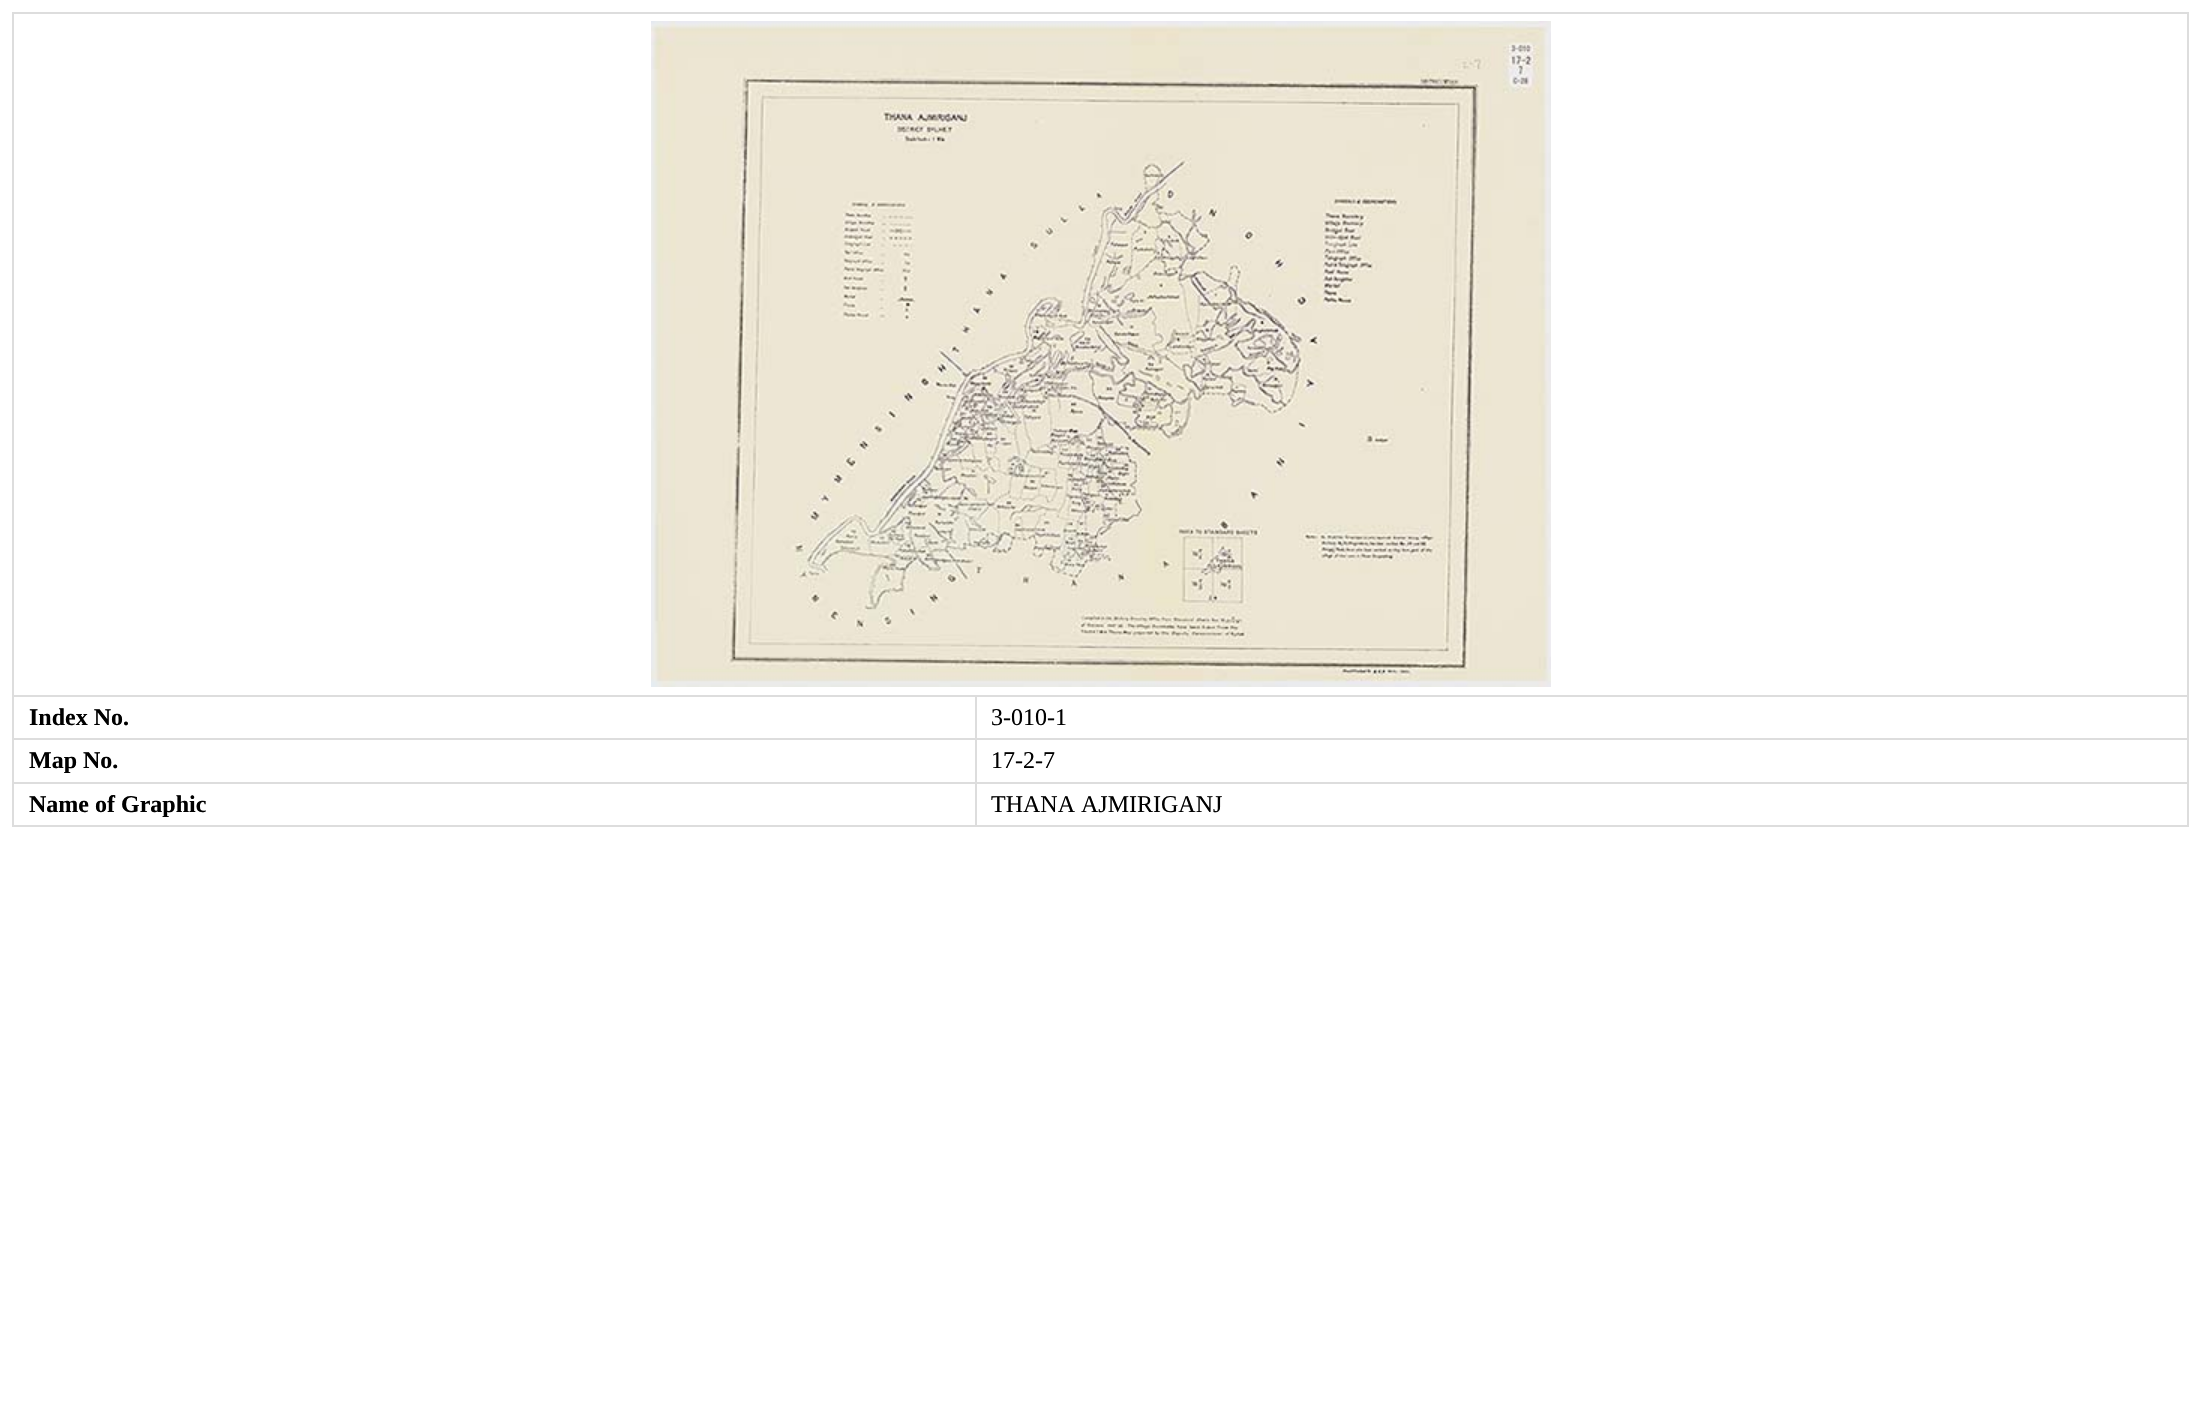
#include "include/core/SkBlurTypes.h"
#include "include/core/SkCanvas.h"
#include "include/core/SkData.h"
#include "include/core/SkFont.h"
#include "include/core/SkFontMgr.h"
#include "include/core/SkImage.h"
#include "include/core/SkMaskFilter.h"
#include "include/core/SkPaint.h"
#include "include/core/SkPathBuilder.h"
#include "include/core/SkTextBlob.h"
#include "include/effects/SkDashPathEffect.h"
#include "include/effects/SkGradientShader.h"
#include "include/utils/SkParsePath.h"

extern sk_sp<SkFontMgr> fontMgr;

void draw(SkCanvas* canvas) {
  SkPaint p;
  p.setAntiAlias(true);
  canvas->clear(SK_ColorWHITE);
  p.setColor(SkColorSetRGB(221, 221, 221));
  canvas->drawRect(SkRect::MakeLTRB(12, 12, 2189, 14), p);
  canvas->drawRect(SkRect::MakeLTRB(975, 695, 2189, 697), p);
  canvas->drawRect(SkRect::MakeLTRB(975, 738, 2189, 740), p);
  canvas->drawRect(SkRect::MakeLTRB(975, 782, 2189, 784), p);
  canvas->drawRect(SkRect::MakeLTRB(2187, 782, 2189, 827), p);
  canvas->drawRect(SkRect::MakeLTRB(2187, 738, 2189, 783), p);
  canvas->drawRect(SkRect::MakeLTRB(2187, 695, 2189, 740), p);
  canvas->drawRect(SkRect::MakeLTRB(2187, 12, 2189, 696), p);
  canvas->drawRect(SkRect::MakeLTRB(975, 825, 2189, 827), p);
  canvas->drawRect(SkRect::MakeLTRB(975, 782, 977, 827), p);
  canvas->drawRect(SkRect::MakeLTRB(12, 782, 977, 784), p);
  canvas->drawRect(SkRect::MakeLTRB(975, 738, 977, 783), p);
  canvas->drawRect(SkRect::MakeLTRB(12, 738, 977, 740), p);
  canvas->drawRect(SkRect::MakeLTRB(975, 695, 977, 740), p);
  canvas->drawRect(SkRect::MakeLTRB(12, 695, 977, 697), p);
  canvas->drawRect(SkRect::MakeLTRB(12, 825, 977, 827), p);
  canvas->drawRect(SkRect::MakeLTRB(12, 782, 14, 827), p);
  canvas->drawRect(SkRect::MakeLTRB(12, 738, 14, 783), p);
  canvas->drawRect(SkRect::MakeLTRB(12, 695, 14, 740), p);
  canvas->drawRect(SkRect::MakeLTRB(12, 12, 14, 696), p);
  canvas->drawImageRect(SkImages::DeferredFromEncodedData(SkData::MakeFromFileName("images/1.png")), SkRect::MakeLTRB(651, 21, 1551, 687), SkSamplingOptions());
  SkFont font1(fontMgr->matchFamilyStyle("Liberation Serif", SkFontStyle::Bold()), 24);
  font1.setSubpixel(true);
  p.setColor(SK_ColorBLACK);
  canvas->drawString("Index No.", 29, 725, font1, p);
  SkFont font2(fontMgr->matchFamilyStyle("Liberation Serif", SkFontStyle::Normal()), 24);
  font2.setSubpixel(true);
  canvas->drawString("3-010-1", 991, 725, font2, p);
  canvas->drawString("Map No.", 29, 768, font1, p);
  canvas->drawString("17-2-7", 991, 768, font2, p);
  canvas->drawString("Name of Graphic", 29, 812, font1, p);
  canvas->drawString("THANA AJMIRIGANJ", 991, 812, font2, p);
}
